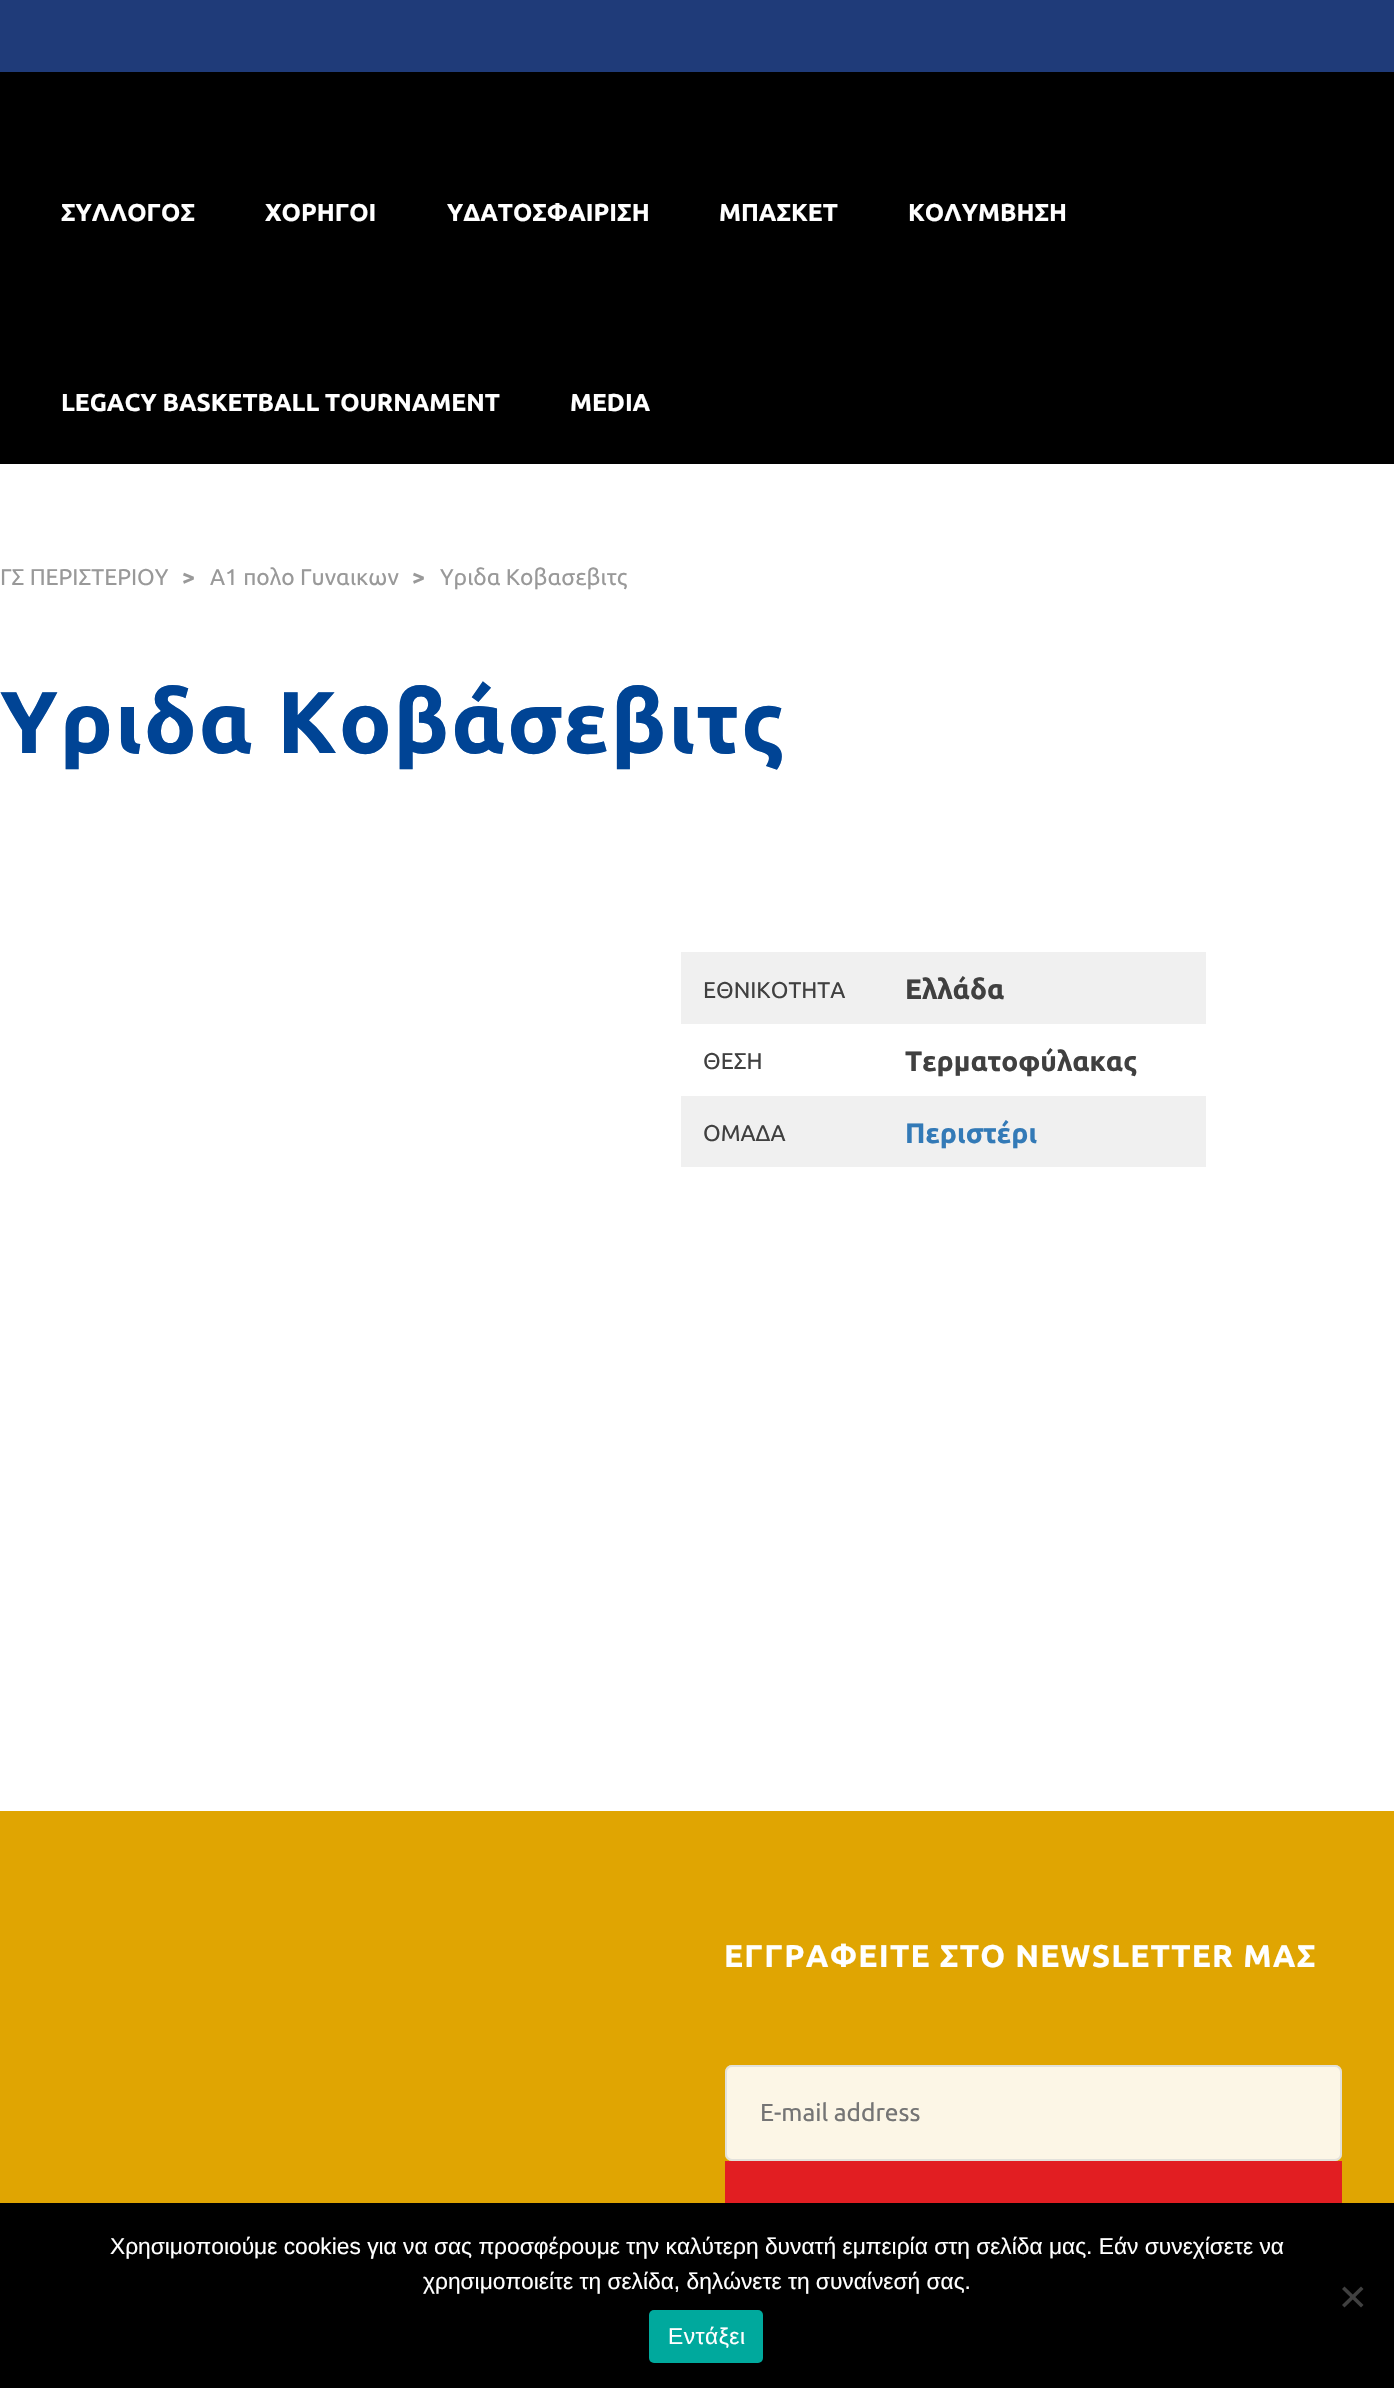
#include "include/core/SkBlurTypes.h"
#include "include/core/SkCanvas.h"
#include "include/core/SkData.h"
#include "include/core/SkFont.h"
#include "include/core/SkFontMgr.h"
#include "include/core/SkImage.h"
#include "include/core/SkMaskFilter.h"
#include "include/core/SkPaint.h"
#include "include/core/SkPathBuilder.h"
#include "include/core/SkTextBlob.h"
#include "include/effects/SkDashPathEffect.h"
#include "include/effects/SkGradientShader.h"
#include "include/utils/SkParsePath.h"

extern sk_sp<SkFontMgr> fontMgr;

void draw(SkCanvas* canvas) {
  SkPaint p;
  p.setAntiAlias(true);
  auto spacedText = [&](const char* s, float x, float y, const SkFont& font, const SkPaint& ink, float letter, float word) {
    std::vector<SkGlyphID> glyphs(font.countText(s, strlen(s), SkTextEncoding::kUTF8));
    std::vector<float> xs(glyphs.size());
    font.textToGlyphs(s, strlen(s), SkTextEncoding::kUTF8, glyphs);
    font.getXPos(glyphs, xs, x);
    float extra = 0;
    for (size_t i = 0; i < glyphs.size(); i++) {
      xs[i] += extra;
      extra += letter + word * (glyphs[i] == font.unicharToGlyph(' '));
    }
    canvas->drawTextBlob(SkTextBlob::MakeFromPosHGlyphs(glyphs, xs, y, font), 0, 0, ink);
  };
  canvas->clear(SK_ColorWHITE);
  p.setColor(SkColorSetRGB(31, 59, 121));
  canvas->drawRect(SkRect::MakeLTRB(0, 0, 1394, 72), p);
  p.setColor(SK_ColorBLACK);
  canvas->drawRect(SkRect::MakeLTRB(0, 72, 1394, 464), p);
  p.setColor(SkColorSetRGB(240, 240, 240));
  canvas->drawRect(SkRect::MakeLTRB(681, 952, 1206, 1024), p);
  canvas->drawRect(SkRect::MakeLTRB(681, 1096, 1206, 1167), p);
  p.setColor(SkColorSetRGB(224, 165, 2));
  canvas->drawRect(SkRect::MakeLTRB(0, 1811, 1394, 2203), p);
  p.setColor(SkColorSetRGB(252, 246, 230));
  canvas->drawRoundRect(SkRect::MakeLTRB(725, 2065, 1342, 2161), 7, 7, p);
  p.setStyle(SkPaint::kStroke_Style);
  p.setStrokeWidth(2);
  p.setColor(SkColorSetARGB(179, 215, 215, 214));
  canvas->drawRoundRect(SkRect::MakeLTRB(726, 2066, 1341, 2160), 6, 6, p);
  p.setStyle(SkPaint::kFill_Style);
  p.setColor(SkColorSetRGB(226, 30, 34));
  canvas->drawRect(SkRect::MakeLTRB(725, 2161, 1342, 2203), p);
  p.setColor(SK_ColorBLACK);
  canvas->drawRect(SkRect::MakeLTRB(0, 2203, 1394, 2388), p);
  p.setColor(SkColorSetRGB(64, 64, 64));
  canvas->drawPath(SkPathBuilder().moveTo(1361, 2286.5f).lineTo(1363.5f, 2289).lineTo(1344.5f, 2307.5f).lineTo(1342, 2305).close().detach(), p);
  canvas->drawPath(SkPathBuilder().moveTo(1342, 2289).lineTo(1344.5f, 2286.5f).lineTo(1363.5f, 2305).lineTo(1361, 2307.5f).close().detach(), p);
  p.setColor(SkColorSetRGB(0, 169, 157));
  canvas->drawRoundRect(SkRect::MakeLTRB(649, 2310, 763, 2363), 5, 5, p);
  SkFont font1(fontMgr->matchFamilyStyle("Ubuntu", SkFontStyle::Bold()), 24.5f);
  font1.setSubpixel(true);
  p.setColor(SK_ColorWHITE);
  canvas->drawString("ΣΥΛΛΟΓΟΣ", 61, 221, font1, p);
  canvas->drawString("ΧΟΡΗΓΟΙ", 265, 221, font1, p);
  canvas->drawString("ΥΔΑΤΟΣΦΑΙΡΙΣΗ", 447, 221, font1, p);
  canvas->drawString("ΜΠΑΣΚΕΤ", 719, 221, font1, p);
  canvas->drawString("ΚΟΛΥΜΒΗΣΗ", 908, 221, font1, p);
  canvas->drawString("LEGACY BASKETBALL TOURNAMENT", 61, 411, font1, p);
  canvas->drawString("MEDIA", 570, 411, font1, p);
  SkFont font2(fontMgr->matchFamilyStyle("Ubuntu", SkFontStyle::Normal()), 22.75f);
  font2.setSubpixel(true);
  p.setColor(SkColorSetRGB(153, 153, 153));
  canvas->drawString("ΓΣ ΠΕΡΙΣΤΕΡΙΟΥ", 0, 585, font2, p);
  SkFont font3(fontMgr->matchFamilyStyle("Ubuntu", SkFontStyle::Bold()), 22.75f);
  font3.setSubpixel(true);
  spacedText(">", 182, 585, font3, p, 1.25f, 0);
  canvas->drawString("Α1 πολο Γυναικων", 210, 585, font2, p);
  spacedText(">", 412, 585, font3, p, 1.25f, 0);
  canvas->drawString("Υριδα Κοβασεβιτς", 440, 585, font2, p);
  SkFont font4(fontMgr->matchFamilyStyle("Ubuntu", SkFontStyle::Bold()), 87.5f);
  font4.setSubpixel(true);
  p.setColor(SkColorSetRGB(0, 68, 149));
  spacedText("Υριδα Κοβάσεβιτς", 0, 753, font4, p, 1.75f, 0);
  p.setColor(SkColorSetRGB(64, 64, 64));
  canvas->drawString("ΕΘΝΙΚΟΤΗΤΑ", 703, 998, font2, p);
  SkFont font5(fontMgr->matchFamilyStyle("Ubuntu", SkFontStyle::Bold()), 28);
  font5.setSubpixel(true);
  canvas->drawString("Ελλάδα", 905, 999, font5, p);
  canvas->drawString("ΘΕΣΗ", 703, 1069, font2, p);
  canvas->drawString("Τερματοφύλακας", 905, 1071, font5, p);
  canvas->drawString("ΟΜΑΔΑ", 703, 1141, font2, p);
  p.setColor(SkColorSetRGB(51, 122, 183));
  canvas->drawString("Περιστέρι", 905, 1143, font5, p);
  SkFont font6(fontMgr->matchFamilyStyle("Ubuntu", SkFontStyle::Bold()), 31.5f);
  font6.setSubpixel(true);
  p.setColor(SK_ColorWHITE);
  spacedText("ΕΓΓΡΑΦΕΙΤΕ ΣΤΟ NEWSLETTER ΜΑΣ", 724, 1967, font6, p, 1.25f, 0);
  SkFont font7(fontMgr->matchFamilyStyle("Ubuntu", SkFontStyle::Normal()), 24.5f);
  font7.setSubpixel(true);
  p.setColor(SkColorSetRGB(117, 117, 117));
  canvas->drawString("E-mail address", 760, 2121, font7, p);
  SkFont font8(fontMgr->matchFamilyStyle("Liberation Sans", SkFontStyle::Normal()), 22.75f);
  font8.setSubpixel(true);
  p.setColor(SK_ColorWHITE);
  canvas->drawString("Χρησιμοποιούμε cookies για να σας προσφέρουμε την καλύτερη δυνατή εμπειρία στη σελίδα μας. Εάν συνεχίσετε να", 110, 2254, font8, p);
  canvas->drawString("χρησιμοποιείτε τη σελίδα, δηλώνετε τη συναίνεσή σας.", 423, 2289, font8, p);
  spacedText("Εντάξει", 668, 2344, font8, p, 0.5f, 0);
}
